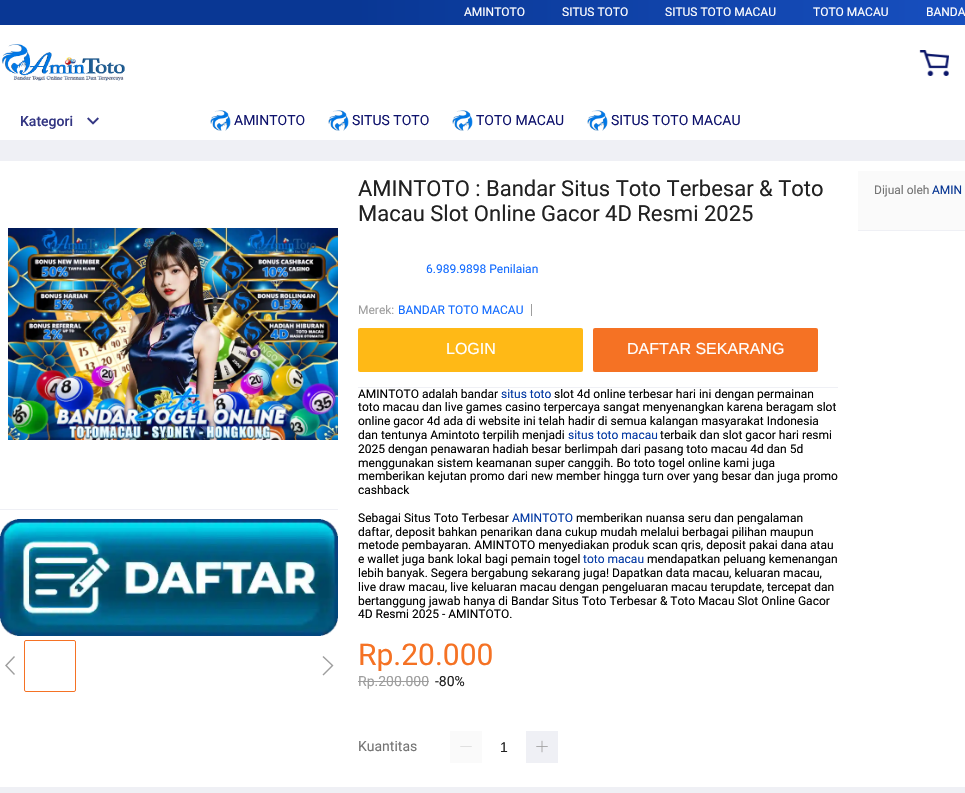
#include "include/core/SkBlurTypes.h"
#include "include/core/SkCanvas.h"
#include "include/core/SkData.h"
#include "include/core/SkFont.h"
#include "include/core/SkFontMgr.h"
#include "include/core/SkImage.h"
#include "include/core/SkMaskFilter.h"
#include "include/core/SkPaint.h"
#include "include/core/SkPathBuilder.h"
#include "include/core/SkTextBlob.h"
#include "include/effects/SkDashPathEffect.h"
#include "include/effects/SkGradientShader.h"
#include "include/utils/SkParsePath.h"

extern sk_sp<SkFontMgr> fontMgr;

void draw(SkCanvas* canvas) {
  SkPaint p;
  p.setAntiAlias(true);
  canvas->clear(SkColorSetRGB(239, 240, 245));
  p.setColor(SK_ColorWHITE);
  canvas->drawRect(SkRect::MakeLTRB(0, 25, 965, 140), p);
  {
    const SkColor colors[] = {SkColorSetRGB(9, 55, 148), SkColorSetRGB(29, 89, 209)};
    const float stops[] = {0.29f, 1};
    const SkPoint ends[] = {{0, 14}, {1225, 11}};
    p.setShader(SkGradientShader::MakeLinear(ends, colors, stops, 2, SkTileMode::kClamp));
    p.setAlpha(255);
  }
  canvas->drawRect(SkRect::MakeLTRB(0, 0, 965, 25), p);
  canvas->drawImageRect(SkImages::DeferredFromEncodedData(SkData::MakeFromFileName("images/1.png")), SkRect::MakeLTRB(2, 44, 125, 81), SkSamplingOptions());
  canvas->drawImageRect(SkImages::DeferredFromEncodedData(SkData::MakeFromFileName("images/2.png")), SkRect::MakeLTRB(919, 50, 949, 76), SkSamplingOptions());
  canvas->drawImageRect(SkImages::DeferredFromEncodedData(SkData::MakeFromFileName("images/3.png")), SkRect::MakeLTRB(87, 117, 99, 125), SkSamplingOptions());
  canvas->drawImageRect(SkImages::DeferredFromEncodedData(SkData::MakeFromFileName("images/4.png")), SkRect::MakeLTRB(210, 110, 231, 131), SkSamplingOptions());
  canvas->drawImageRect(SkImages::DeferredFromEncodedData(SkData::MakeFromFileName("images/5.png")), SkRect::MakeLTRB(328, 110, 349, 131), SkSamplingOptions());
  canvas->drawImageRect(SkImages::DeferredFromEncodedData(SkData::MakeFromFileName("images/5.png")), SkRect::MakeLTRB(452, 110, 473, 131), SkSamplingOptions());
  canvas->drawImageRect(SkImages::DeferredFromEncodedData(SkData::MakeFromFileName("images/5.png")), SkRect::MakeLTRB(587, 110, 608, 131), SkSamplingOptions());
  p.setShader(nullptr);
  p.setColor(SK_ColorWHITE);
  canvas->drawRect(SkRect::MakeLTRB(0, 161, 965, 787), p);
  p.setColor(SkColorSetRGB(239, 240, 245));
  canvas->drawRect(SkRect::MakeLTRB(0, 509, 338, 510), p);
  canvas->drawImageRect(SkImages::DeferredFromEncodedData(SkData::MakeFromFileName("images/6.png")), SkRect::MakeLTRB(8, 228, 338, 440), SkSamplingOptions());
  canvas->drawImageRect(SkImages::DeferredFromEncodedData(SkData::MakeFromFileName("images/7.png")), SkRect::MakeLTRB(0, 519, 338, 636), SkSamplingOptions());
  p.setColor(SkColorSetRGB(158, 158, 158));
  canvas->drawPath(SkPathBuilder().moveTo(15, 674).lineTo(7, 665.5f).lineTo(15, 657).lineTo(14, 656).lineTo(5, 665.5f).lineTo(14, 675).close().detach(), p);
  p.setStyle(SkPaint::kStroke_Style);
  p.setStrokeWidth(1);
  p.setColor(SkColorSetRGB(245, 114, 36));
  canvas->drawRoundRect(SkRect::MakeLTRB(24.5f, 640.5f, 75.5f, 691.5f), 1.5f, 1.5f, p);
  p.setStyle(SkPaint::kFill_Style);
  p.setColor(SkColorSetRGB(158, 158, 158));
  canvas->drawPath(SkPathBuilder().moveTo(323.5f, 675.5f).lineTo(322.5f, 674.5f).lineTo(331.5f, 665.5f).lineTo(322.5f, 657).lineTo(323.5f, 656).lineTo(333.5f, 665.5f).close().detach(), p);
  p.setColor(SkColorSetRGB(239, 240, 245));
  canvas->drawRect(SkRect::MakeLTRB(358, 387, 838, 388), p);
  p.setColor(SkColorSetRGB(158, 158, 158));
  canvas->drawRect(SkRect::MakeLTRB(531, 304, 532, 316), p);
  p.setColor(SkColorSetRGB(255, 185, 22));
  canvas->drawRoundRect(SkRect::MakeLTRB(358, 328, 583, 372), 2, 2, p);
  p.setColor(SkColorSetRGB(245, 114, 36));
  canvas->drawRoundRect(SkRect::MakeLTRB(593, 328, 818, 372), 2, 2, p);
  p.setColor(SkColorSetRGB(158, 158, 158));
  canvas->drawRect(SkRect::MakeLTRB(358, 681, 429, 682), p);
  p.setColor(SkColorSetRGB(250, 250, 250));
  canvas->drawRect(SkRect::MakeLTRB(450, 731, 482, 763), p);
  canvas->drawImageRect(SkImages::DeferredFromEncodedData(SkData::MakeFromFileName("images/8.png")), SkRect::MakeLTRB(460, 746, 472, 747), SkSamplingOptions());
  p.setColor(SkColorSetRGB(239, 240, 245));
  canvas->drawRect(SkRect::MakeLTRB(526, 731, 558, 763), p);
  canvas->drawImageRect(SkImages::DeferredFromEncodedData(SkData::MakeFromFileName("images/9.png")), SkRect::MakeLTRB(536, 740, 548, 753), SkSamplingOptions());
  p.setColor(SkColorSetRGB(250, 250, 250));
  canvas->drawRect(SkRect::MakeLTRB(858, 171, 965, 230), p);
  p.setColor(SkColorSetRGB(239, 240, 245));
  canvas->drawRect(SkRect::MakeLTRB(858, 230, 965, 231), p);
  SkFont font1(fontMgr->matchFamilyStyle("Roboto", SkFontStyle::Normal()), 12);
  font1.setSubpixel(true);
  p.setColor(SK_ColorWHITE);
  canvas->drawString("AMINTOTO", 464, 16, font1, p);
  canvas->drawString("SITUS TOTO", 562, 16, font1, p);
  canvas->drawString("SITUS TOTO MACAU", 665, 16, font1, p);
  canvas->drawString("TOTO MACAU", 813, 16, font1, p);
  canvas->drawString("BANDA", 926, 16, font1, p);
  SkFont font2(fontMgr->matchFamilyStyle("Roboto", SkFontStyle(500, SkFontStyle::kNormal_Width, SkFontStyle::kUpright_Slant)), 14);
  font2.setSubpixel(true);
  p.setColor(SkColorSetRGB(51, 54, 131));
  canvas->drawString("Kategori", 20, 126, font2, p);
  SkFont font3(fontMgr->matchFamilyStyle("Roboto", SkFontStyle::Normal()), 14);
  font3.setSubpixel(true);
  p.setColor(SkColorSetRGB(15, 19, 109));
  canvas->drawString("AMINTOTO", 234, 125, font3, p);
  canvas->drawString("SITUS TOTO", 352, 125, font3, p);
  canvas->drawString("TOTO MACAU", 476, 125, font3, p);
  canvas->drawString("SITUS TOTO MACAU", 611, 125, font3, p);
  SkFont font4(fontMgr->matchFamilyStyle("Roboto", SkFontStyle::Normal()), 22);
  font4.setSubpixel(true);
  p.setColor(SkColorSetRGB(33, 33, 33));
  canvas->drawString("AMINTOTO : Bandar Situs Toto Terbesar & Toto", 358, 196, font4, p);
  canvas->drawString("Macau Slot Online Gacor 4D Resmi 2025", 358, 221, font4, p);
  p.setColor(SkColorSetRGB(19, 108, 255));
  canvas->drawString("6.989.9898 Penilaian", 426, 273, font1, p);
  p.setColor(SkColorSetRGB(158, 158, 158));
  canvas->drawString("Merek:", 358, 314, font1, p);
  p.setColor(SkColorSetRGB(19, 108, 255));
  canvas->drawString("BANDAR TOTO MACAU", 398, 314, font1, p);
  SkFont font5(fontMgr->matchFamilyStyle("Liberation Sans", SkFontStyle::Normal()), 16);
  font5.setSubpixel(true);
  p.setColor(SK_ColorWHITE);
  canvas->drawString("LOGIN", 446, 354, font5, p);
  canvas->drawString("DAFTAR SEKARANG", 627, 354, font5, p);
  p.setColor(SK_ColorBLACK);
  canvas->drawString("AMINTOTO adalah bandar", 358, 398, font1, p);
  p.setColor(SkColorSetRGB(3, 57, 163));
  canvas->drawString("situs toto", 501, 398, font1, p);
  p.setColor(SK_ColorBLACK);
  canvas->drawString("slot 4d online terbesar hari ini dengan permainan", 554, 398, font1, p);
  canvas->drawString("toto macau dan live games casino terpercaya sangat menyenangkan karena beragam slot", 358, 411, font1, p);
  canvas->drawString("online gacor 4d ada di website ini telah hadir di semua kalangan masyarakat Indonesia", 358, 425, font1, p);
  canvas->drawString("dan tentunya Amintoto terpilih menjadi", 358, 439, font1, p);
  p.setColor(SkColorSetRGB(3, 57, 163));
  canvas->drawString("situs toto macau", 568, 439, font1, p);
  p.setColor(SK_ColorBLACK);
  canvas->drawString("terbaik dan slot gacor hari resmi", 660, 439, font1, p);
  canvas->drawString("2025 dengan penawaran hadiah besar berlimpah dari pasang toto macau 4d dan 5d", 358, 453, font1, p);
  canvas->drawString("menggunakan sistem keamanan super canggih. Bo toto togel online kami juga", 358, 467, font1, p);
  canvas->drawString("memberikan kejutan promo dari new member hingga turn over yang besar dan juga promo", 358, 480, font1, p);
  canvas->drawString("cashback", 358, 494, font1, p);
  canvas->drawString("Sebagai Situs Toto Terbesar", 358, 522, font1, p);
  p.setColor(SkColorSetRGB(3, 57, 163));
  canvas->drawString("AMINTOTO", 512, 522, font1, p);
  p.setColor(SK_ColorBLACK);
  canvas->drawString("memberikan nuansa seru dan pengalaman", 576, 522, font1, p);
  canvas->drawString("daftar, deposit bahkan penarikan dana cukup mudah melalui berbagai pilihan maupun", 358, 536, font1, p);
  canvas->drawString("metode pembayaran. AMINTOTO menyediakan produk scan qris, deposit pakai dana atau", 358, 549, font1, p);
  canvas->drawString("e wallet juga bank lokal bagi pemain togel", 358, 563, font1, p);
  p.setColor(SkColorSetRGB(3, 57, 163));
  canvas->drawString("toto macau", 583, 563, font1, p);
  p.setColor(SK_ColorBLACK);
  canvas->drawString("mendapatkan peluang kemenangan", 647, 563, font1, p);
  canvas->drawString("lebih banyak. Segera bergabung sekarang juga! Dapatkan data macau, keluaran macau,", 358, 577, font1, p);
  canvas->drawString("live draw macau, live keluaran macau dengan pengeluaran macau terupdate, tercepat dan", 358, 591, font1, p);
  canvas->drawString("bertanggung jawab hanya di Bandar Situs Toto Terbesar & Toto Macau Slot Online Gacor", 358, 605, font1, p);
  canvas->drawString("4D Resmi 2025 - AMINTOTO.", 358, 618, font1, p);
  SkFont font6(fontMgr->matchFamilyStyle("Roboto", SkFontStyle::Normal()), 30);
  font6.setSubpixel(true);
  p.setColor(SkColorSetRGB(245, 114, 36));
  canvas->drawString("Rp.20.000", 358, 665, font6, p);
  p.setColor(SkColorSetRGB(158, 158, 158));
  canvas->drawString("Rp.200.000", 358, 686, font3, p);
  p.setColor(SkColorSetRGB(33, 33, 33));
  canvas->drawString("-80%", 435, 686, font3, p);
  p.setColor(SkColorSetRGB(117, 117, 117));
  canvas->drawString("Kuantitas", 358, 751, font3, p);
  SkFont font7(fontMgr->matchFamilyStyle("Liberation Sans", SkFontStyle::Normal()), 14);
  font7.setSubpixel(true);
  p.setColor(SkColorSetRGB(33, 33, 33));
  canvas->drawString("1", 500, 752, font7, p);
  p.setColor(SkColorSetRGB(117, 117, 117));
  canvas->drawString("Dijual oleh", 874, 194, font1, p);
  p.setColor(SkColorSetRGB(9, 55, 148));
  canvas->drawString("AMIN", 932, 194, font1, p);
}
